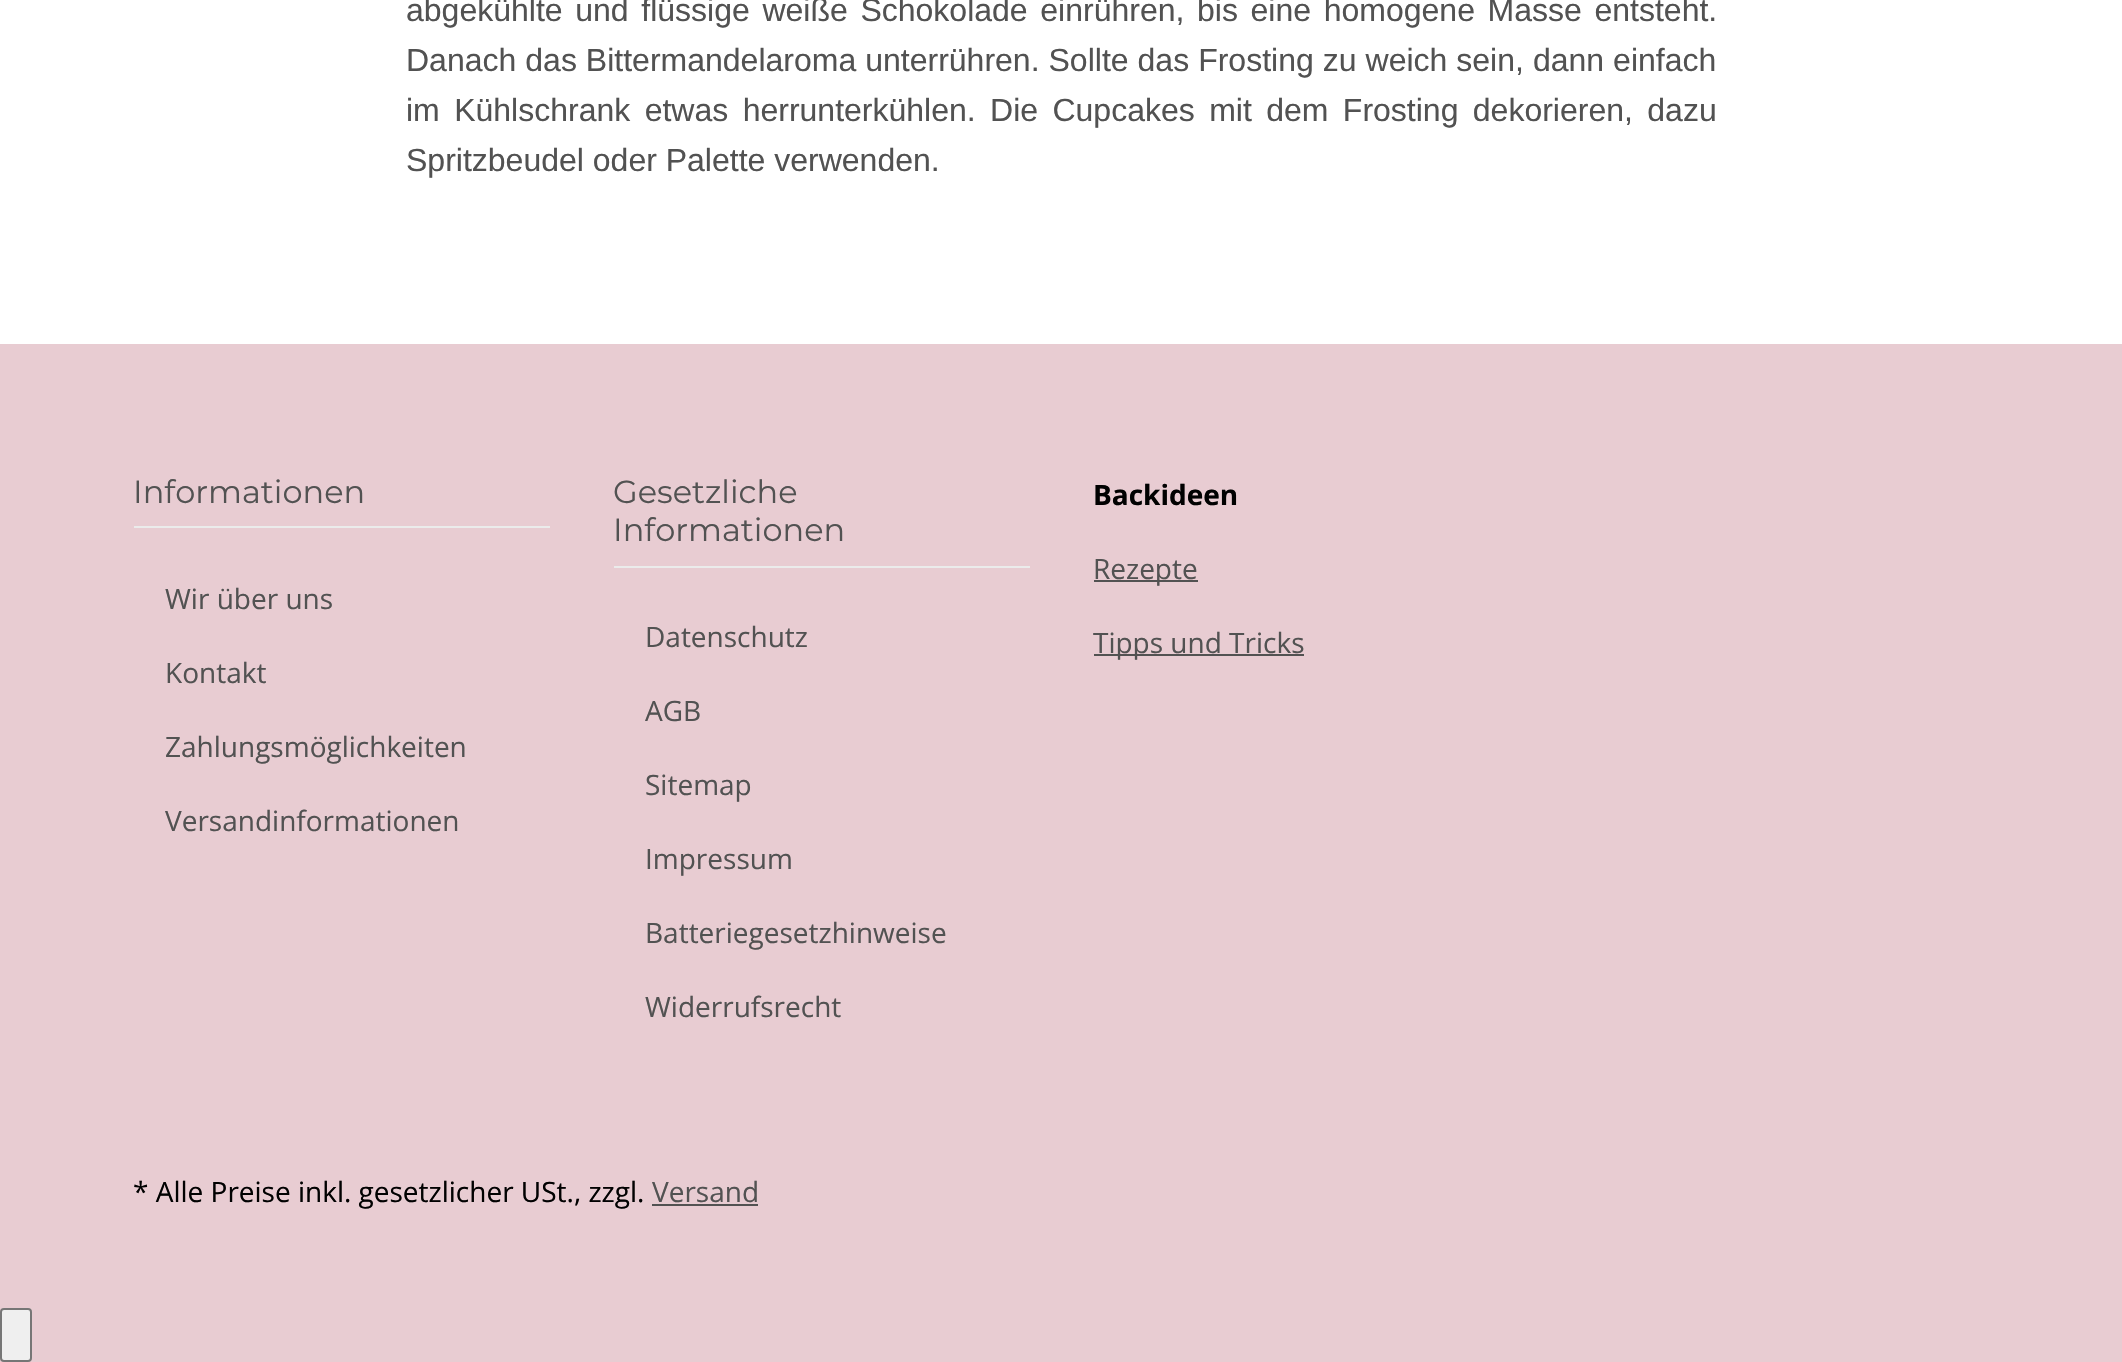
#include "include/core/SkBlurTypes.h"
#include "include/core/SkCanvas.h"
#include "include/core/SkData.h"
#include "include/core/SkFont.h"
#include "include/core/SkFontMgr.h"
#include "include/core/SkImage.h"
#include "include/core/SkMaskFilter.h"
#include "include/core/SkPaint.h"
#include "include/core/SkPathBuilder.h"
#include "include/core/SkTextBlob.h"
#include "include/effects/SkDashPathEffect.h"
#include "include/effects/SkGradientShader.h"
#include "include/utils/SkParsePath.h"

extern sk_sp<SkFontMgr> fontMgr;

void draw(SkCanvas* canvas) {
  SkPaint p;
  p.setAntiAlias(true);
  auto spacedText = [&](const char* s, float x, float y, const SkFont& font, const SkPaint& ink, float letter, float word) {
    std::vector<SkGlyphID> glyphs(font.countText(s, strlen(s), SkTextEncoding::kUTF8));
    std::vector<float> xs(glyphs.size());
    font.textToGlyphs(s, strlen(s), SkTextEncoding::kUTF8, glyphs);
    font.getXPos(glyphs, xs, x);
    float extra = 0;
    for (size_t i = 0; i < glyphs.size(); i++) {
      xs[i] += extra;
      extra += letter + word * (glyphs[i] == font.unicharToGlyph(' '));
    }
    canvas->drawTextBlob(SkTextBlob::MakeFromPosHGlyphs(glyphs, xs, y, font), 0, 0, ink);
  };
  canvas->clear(SK_ColorWHITE);
  p.setColor(SkColorSetRGB(232, 204, 210));
  canvas->drawRect(SkRect::MakeLTRB(0, 344, 2122, 1362), p);
  p.setColor(SkColorSetRGB(235, 235, 235));
  canvas->drawRect(SkRect::MakeLTRB(134, 526, 550, 528), p);
  canvas->drawRect(SkRect::MakeLTRB(614, 566, 1030, 568), p);
  p.setColor(SkColorSetRGB(82, 82, 82));
  canvas->drawRect(SkRect::MakeLTRB(1094, 580, 1198, 582), p);
  canvas->drawRect(SkRect::MakeLTRB(1094, 654, 1304, 656), p);
  canvas->drawRect(SkRect::MakeLTRB(652, 1204, 758, 1206), p);
  p.setColor(SkColorSetRGB(239, 239, 239));
  canvas->drawRoundRect(SkRect::MakeLTRB(1, 1309, 31, 1361), 3, 3, p);
  p.setStyle(SkPaint::kStroke_Style);
  p.setStrokeWidth(2);
  p.setColor(SkColorSetRGB(118, 118, 118));
  canvas->drawRoundRect(SkRect::MakeLTRB(1, 1309, 31, 1361), 3, 3, p);
  SkFont font1(fontMgr->matchFamilyStyle("Liberation Sans", SkFontStyle::Normal()), 32);
  font1.setSubpixel(true);
  p.setStyle(SkPaint::kFill_Style);
  p.setColor(SkColorSetRGB(82, 82, 82));
  spacedText("abgekühlte und flüssige weiße Schokolade einrühren, bis eine homogene Masse entsteht.", 406, 21, font1, p, 0, 3.75f);
  spacedText("Danach das Bittermandelaroma unterrühren. Sollte das Frosting zu weich sein, dann einfach", 406, 71, font1, p, 0, 0.1f);
  spacedText("im Kühlschrank etwas herrunterkühlen. Die Cupcakes mit dem Frosting dekorieren, dazu", 406, 121, font1, p, 0, 5.5f);
  canvas->drawString("Spritzbeudel oder Palette verwenden.", 406, 171, font1, p);
  SkFont font2(fontMgr->matchFamilyStyle("Montserrat", SkFontStyle::Normal()), 32);
  font2.setSubpixel(true);
  canvas->drawString("Informationen", 133, 503, font2, p);
  SkFont font3(fontMgr->matchFamilyStyle("Open Sans", SkFontStyle::Normal()), 28);
  font3.setSubpixel(true);
  canvas->drawString("Wir über uns", 165, 609, font3, p);
  canvas->drawString("Kontakt", 165, 683, font3, p);
  canvas->drawString("Zahlungsmöglichkeiten", 165, 757, font3, p);
  canvas->drawString("Versandinformationen", 165, 831, font3, p);
  canvas->drawString("Gesetzliche", 613, 503, font2, p);
  canvas->drawString("Informationen", 613, 541, font2, p);
  canvas->drawString("Datenschutz", 645, 647, font3, p);
  canvas->drawString("AGB", 645, 721, font3, p);
  canvas->drawString("Sitemap", 645, 795, font3, p);
  canvas->drawString("Impressum", 645, 869, font3, p);
  canvas->drawString("Batteriegesetzhinweise", 645, 943, font3, p);
  canvas->drawString("Widerrufsrecht", 645, 1017, font3, p);
  SkFont font4(fontMgr->matchFamilyStyle("Open Sans", SkFontStyle::Bold()), 28);
  font4.setSubpixel(true);
  p.setColor(SkColorSetRGB(1, 1, 1));
  canvas->drawString("Backideen", 1093, 505, font4, p);
  p.setColor(SkColorSetRGB(82, 82, 82));
  canvas->drawString("Rezepte", 1093, 579, font3, p);
  canvas->drawString("Tipps und Tricks", 1093, 653, font3, p);
  p.setColor(SkColorSetRGB(1, 1, 1));
  canvas->drawString("* Alle Preise inkl. gesetzlicher USt., zzgl.", 133, 1202, font3, p);
  p.setColor(SkColorSetRGB(82, 82, 82));
  canvas->drawString("Versand", 652, 1202, font3, p);
}
